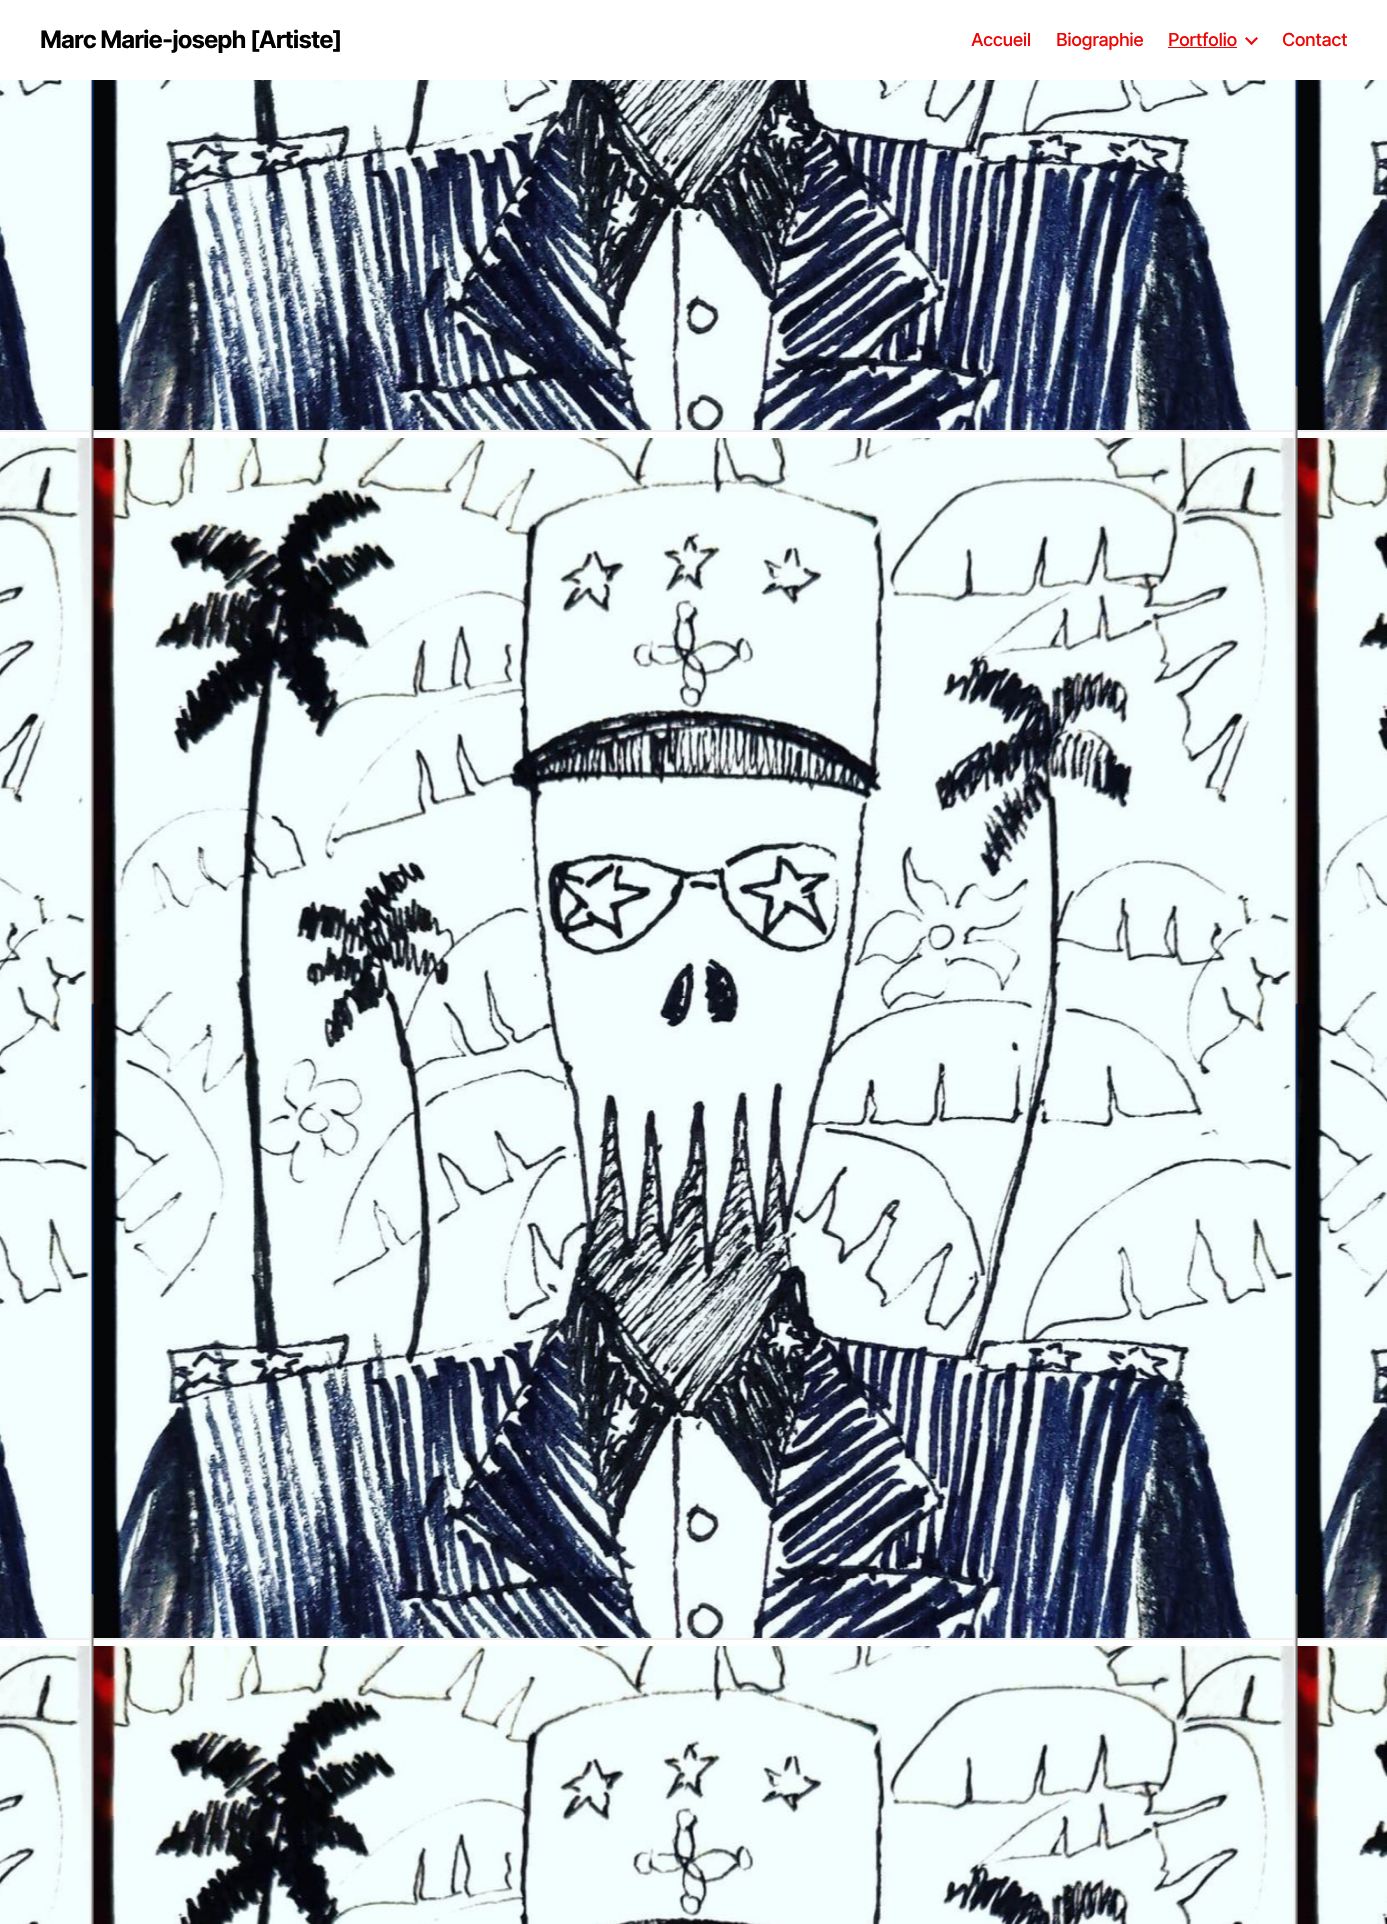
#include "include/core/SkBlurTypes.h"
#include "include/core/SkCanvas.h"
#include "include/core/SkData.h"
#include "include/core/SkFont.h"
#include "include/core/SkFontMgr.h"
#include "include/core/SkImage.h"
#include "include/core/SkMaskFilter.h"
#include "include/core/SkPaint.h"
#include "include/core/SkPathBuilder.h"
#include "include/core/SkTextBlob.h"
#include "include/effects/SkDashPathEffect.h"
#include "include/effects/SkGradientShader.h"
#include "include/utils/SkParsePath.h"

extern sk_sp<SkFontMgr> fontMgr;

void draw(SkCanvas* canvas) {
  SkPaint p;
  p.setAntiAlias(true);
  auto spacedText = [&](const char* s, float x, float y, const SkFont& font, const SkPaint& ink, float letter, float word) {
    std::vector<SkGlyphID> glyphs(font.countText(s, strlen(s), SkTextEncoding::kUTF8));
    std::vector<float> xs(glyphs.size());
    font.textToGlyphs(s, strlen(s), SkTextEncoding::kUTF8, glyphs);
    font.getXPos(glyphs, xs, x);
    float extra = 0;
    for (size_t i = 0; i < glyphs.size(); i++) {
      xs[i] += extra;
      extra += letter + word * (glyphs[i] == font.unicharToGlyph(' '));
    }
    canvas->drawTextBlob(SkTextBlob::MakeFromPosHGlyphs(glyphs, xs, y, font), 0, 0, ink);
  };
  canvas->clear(SK_ColorWHITE);
  p.setColor(SkColorSetRGB(238, 6, 6));
  canvas->drawRect(SkRect::MakeLTRB(1168, 47, 1237, 48), p);
  canvas->drawPath(SkPathBuilder().moveTo(1245, 38.5f).lineTo(1246.5f, 37).lineTo(1253, 43.5f).lineTo(1251.5f, 45).close().detach(), p);
  canvas->drawPath(SkPathBuilder().moveTo(1250, 43.5f).lineTo(1256.5f, 37).lineTo(1258, 38.5f).lineTo(1251.5f, 45).close().detach(), p);
  canvas->drawImageRect(SkImages::DeferredFromEncodedData(SkData::MakeFromFileName("images/1.png")), SkRect::MakeLTRB(0, 80, 1387, 1924), SkSamplingOptions());
  SkFont font1(fontMgr->matchFamilyStyle("Inter", SkFontStyle::Bold()), 24);
  font1.setSubpixel(true);
  p.setColor(SK_ColorBLACK);
  spacedText("Marc Marie-joseph [Artiste]", 40, 48, font1, p, -1, 0);
  SkFont font2(fontMgr->matchFamilyStyle("Inter", SkFontStyle(500, SkFontStyle::kNormal_Width, SkFontStyle::kUpright_Slant)), 18);
  font2.setSubpixel(true);
  p.setColor(SkColorSetRGB(238, 6, 6));
  spacedText("Accueil", 971, 46, font2, p, -0.5f, 0);
  spacedText("Biographie", 1056, 46, font2, p, -0.5f, 0);
  spacedText("Portfolio", 1168, 46, font2, p, -0.5f, 0);
  spacedText("Contact", 1282, 46, font2, p, -0.5f, 0);
}
